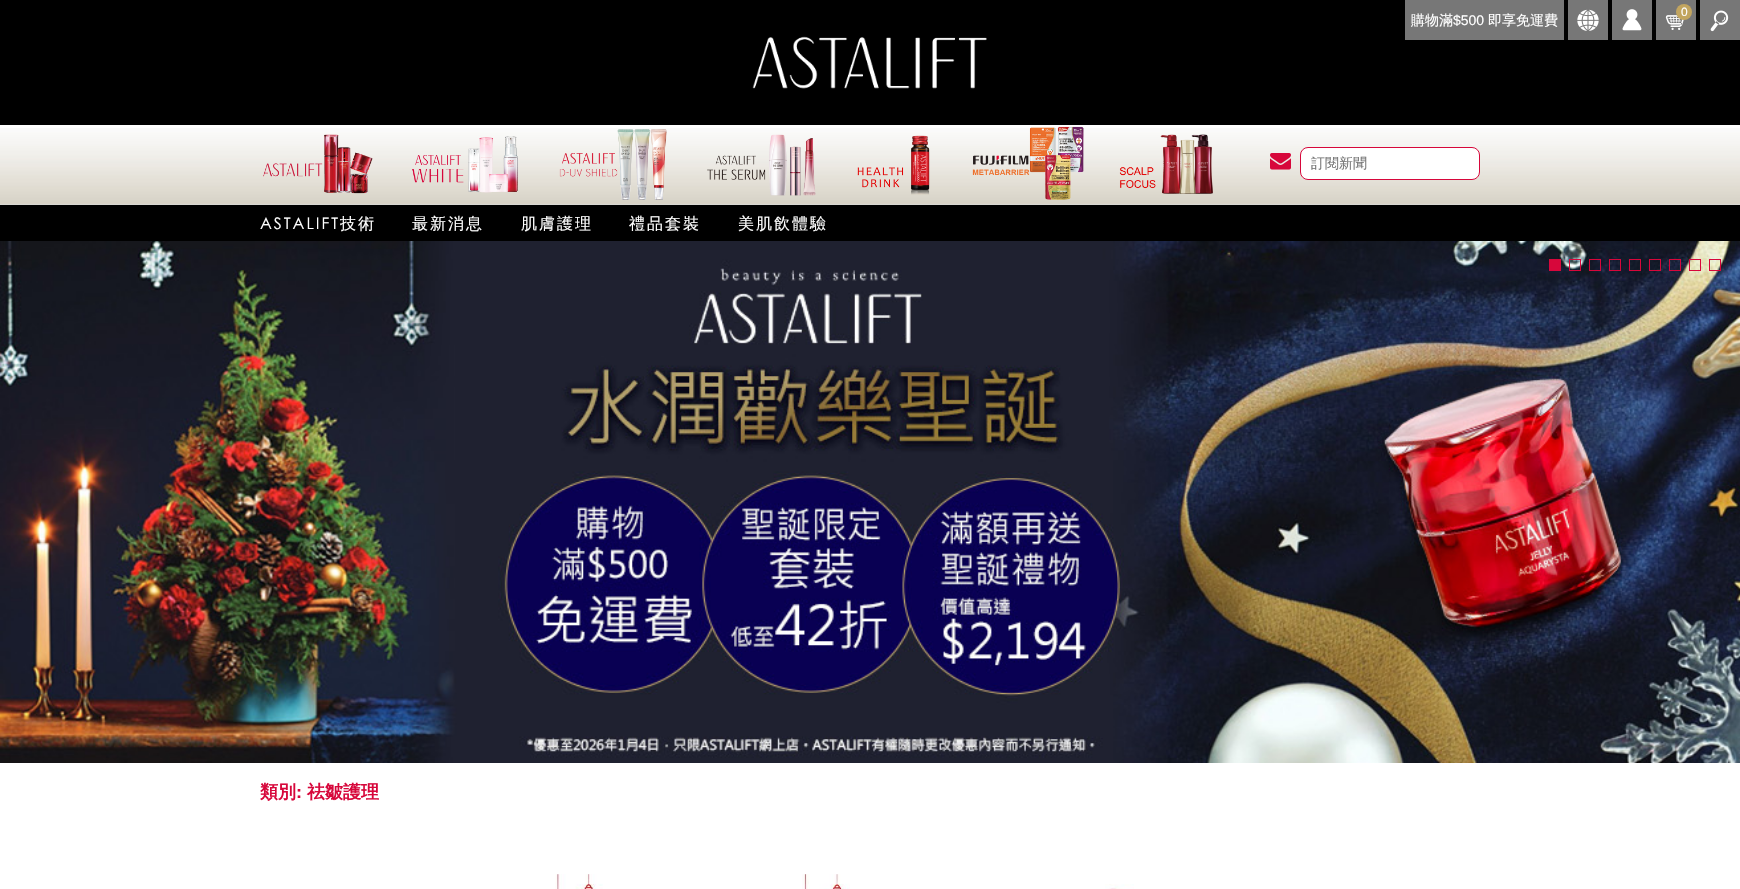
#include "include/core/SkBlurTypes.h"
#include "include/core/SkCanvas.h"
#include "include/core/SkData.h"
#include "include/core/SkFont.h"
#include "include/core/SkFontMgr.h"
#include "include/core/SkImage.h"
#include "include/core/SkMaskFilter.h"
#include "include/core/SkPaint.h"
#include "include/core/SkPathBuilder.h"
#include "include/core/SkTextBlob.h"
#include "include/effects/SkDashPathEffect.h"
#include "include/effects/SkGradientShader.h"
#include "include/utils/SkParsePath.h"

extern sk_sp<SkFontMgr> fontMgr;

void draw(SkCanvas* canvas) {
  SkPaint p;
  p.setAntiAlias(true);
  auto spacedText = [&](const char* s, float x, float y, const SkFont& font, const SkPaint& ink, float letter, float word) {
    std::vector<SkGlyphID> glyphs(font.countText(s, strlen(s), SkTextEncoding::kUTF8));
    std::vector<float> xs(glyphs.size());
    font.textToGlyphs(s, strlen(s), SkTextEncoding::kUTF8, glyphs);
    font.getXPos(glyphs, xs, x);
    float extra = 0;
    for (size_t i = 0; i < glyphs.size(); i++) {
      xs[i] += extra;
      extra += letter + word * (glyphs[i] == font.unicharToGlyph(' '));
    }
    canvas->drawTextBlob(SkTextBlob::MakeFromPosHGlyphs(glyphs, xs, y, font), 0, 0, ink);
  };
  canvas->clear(SK_ColorWHITE);
  p.setColor(SK_ColorBLACK);
  canvas->drawRect(SkRect::MakeLTRB(0, 0, 1740, 125), p);
  canvas->drawImageRect(SkImages::DeferredFromEncodedData(SkData::MakeFromFileName("images/1.png")), SkRect::MakeLTRB(752, 36, 987, 89), SkSamplingOptions());
  p.setColor(SkColorSetRGB(119, 119, 119));
  canvas->drawRect(SkRect::MakeLTRB(1568, 0, 1608, 40), p);
  canvas->drawImageRect(SkImages::DeferredFromEncodedData(SkData::MakeFromFileName("images/2.png")), SkRect::MakeLTRB(1577, 9, 1599, 31), SkSamplingOptions());
  canvas->drawRect(SkRect::MakeLTRB(1612, 0, 1652, 40), p);
  canvas->drawImageRect(SkImages::DeferredFromEncodedData(SkData::MakeFromFileName("images/3.png")), SkRect::MakeLTRB(1622, 9, 1642, 31), SkSamplingOptions());
  canvas->drawRect(SkRect::MakeLTRB(1656, 0, 1696, 40), p);
  canvas->drawImageRect(SkImages::DeferredFromEncodedData(SkData::MakeFromFileName("images/4.png")), SkRect::MakeLTRB(1665, 15, 1684, 30), SkSamplingOptions());
  p.setColor(SkColorSetRGB(194, 165, 95));
  canvas->drawCircle(1684, 12, 8, p);
  p.setColor(SkColorSetRGB(119, 119, 119));
  canvas->drawRect(SkRect::MakeLTRB(1700, 0, 1740, 40), p);
  canvas->drawImageRect(SkImages::DeferredFromEncodedData(SkData::MakeFromFileName("images/5.png")), SkRect::MakeLTRB(1710, 10, 1729, 32), SkSamplingOptions());
  canvas->drawRect(SkRect::MakeLTRB(1405, 0, 1564, 40), p);
  canvas->drawImageRect(SkImages::DeferredFromEncodedData(SkData::MakeFromFileName("images/6.png")), SkRect::MakeLTRB(0, 128, 1740, 205), SkSamplingOptions());
  canvas->drawImageRect(SkImages::DeferredFromEncodedData(SkData::MakeFromFileName("images/7.png")), SkRect::MakeLTRB(263, 134, 373, 194), SkSamplingOptions());
  canvas->drawImageRect(SkImages::DeferredFromEncodedData(SkData::MakeFromFileName("images/8.png")), SkRect::MakeLTRB(412, 136, 518, 193), SkSamplingOptions());
  canvas->drawImageRect(SkImages::DeferredFromEncodedData(SkData::MakeFromFileName("images/9.png")), SkRect::MakeLTRB(559, 129, 667, 200), SkSamplingOptions());
  canvas->drawImageRect(SkImages::DeferredFromEncodedData(SkData::MakeFromFileName("images/10.png")), SkRect::MakeLTRB(707, 134, 816, 196), SkSamplingOptions());
  canvas->drawImageRect(SkImages::DeferredFromEncodedData(SkData::MakeFromFileName("images/11.png")), SkRect::MakeLTRB(857, 135, 930, 195), SkSamplingOptions());
  canvas->drawImageRect(SkImages::DeferredFromEncodedData(SkData::MakeFromFileName("images/12.png")), SkRect::MakeLTRB(972, 126, 1084, 200), SkSamplingOptions());
  canvas->drawImageRect(SkImages::DeferredFromEncodedData(SkData::MakeFromFileName("images/13.png")), SkRect::MakeLTRB(1119, 134, 1213, 194), SkSamplingOptions());
  canvas->drawImageRect(SkImages::DeferredFromEncodedData(SkData::MakeFromFileName("images/14.png")), SkRect::MakeLTRB(1270, 153, 1291, 170), SkSamplingOptions());
  p.setColor(SK_ColorWHITE);
  canvas->drawRoundRect(SkRect::MakeLTRB(1300.5f, 147.5f, 1479.5f, 179.5f), 7.5f, 7.5f, p);
  p.setStyle(SkPaint::kStroke_Style);
  p.setStrokeWidth(1);
  p.setColor(SkColorSetRGB(215, 7, 59));
  canvas->drawRoundRect(SkRect::MakeLTRB(1300.5f, 147.5f, 1479.5f, 179.5f), 7.5f, 7.5f, p);
  p.setStyle(SkPaint::kFill_Style);
  p.setColor(SK_ColorBLACK);
  canvas->drawRect(SkRect::MakeLTRB(0, 205, 1740, 241), p);
  canvas->drawImageRect(SkImages::DeferredFromEncodedData(SkData::MakeFromFileName("images/15.png")), SkRect::MakeLTRB(0, 241, 1740, 763), SkSamplingOptions());
  p.setColor(SkColorSetRGB(215, 7, 59));
  canvas->drawRect(SkRect::MakeLTRB(1549, 259, 1561, 271), p);
  p.setStyle(SkPaint::kStroke_Style);
  canvas->drawRect(SkRect::MakeLTRB(1569.5f, 259.5f, 1580.5f, 270.5f), p);
  canvas->drawRect(SkRect::MakeLTRB(1589.5f, 259.5f, 1600.5f, 270.5f), p);
  canvas->drawRect(SkRect::MakeLTRB(1609.5f, 259.5f, 1620.5f, 270.5f), p);
  canvas->drawRect(SkRect::MakeLTRB(1629.5f, 259.5f, 1640.5f, 270.5f), p);
  canvas->drawRect(SkRect::MakeLTRB(1649.5f, 259.5f, 1660.5f, 270.5f), p);
  canvas->drawRect(SkRect::MakeLTRB(1669.5f, 259.5f, 1680.5f, 270.5f), p);
  canvas->drawRect(SkRect::MakeLTRB(1689.5f, 259.5f, 1700.5f, 270.5f), p);
  canvas->drawRect(SkRect::MakeLTRB(1709.5f, 259.5f, 1720.5f, 270.5f), p);
  canvas->drawImageRect(SkImages::DeferredFromEncodedData(SkData::MakeFromFileName("images/16.png")), SkRect::MakeLTRB(555, 874, 603, 889), SkSamplingOptions());
  canvas->drawImageRect(SkImages::DeferredFromEncodedData(SkData::MakeFromFileName("images/17.png")), SkRect::MakeLTRB(802, 874, 850, 889), SkSamplingOptions());
  canvas->drawImageRect(SkImages::DeferredFromEncodedData(SkData::MakeFromFileName("images/18.png")), SkRect::MakeLTRB(1105, 884, 1134, 889), SkSamplingOptions());
  SkFont font1(fontMgr->matchFamilyStyle("Liberation Sans", SkFontStyle::Normal()), 12);
  font1.setSubpixel(true);
  p.setStyle(SkPaint::kFill_Style);
  p.setColor(SK_ColorWHITE);
  canvas->drawString("0", 1681, 16, font1, p);
  SkFont font2(fontMgr->matchFamilyStyle("WenQuanYi Zen Hei", SkFontStyle(500, SkFontStyle::kNormal_Width, SkFontStyle::kUpright_Slant)), 14);
  font2.setSubpixel(true);
  canvas->drawString("購物滿", 1411, 25, font2, p);
  SkFont font3(fontMgr->matchFamilyStyle("Liberation Sans", SkFontStyle::Normal()), 14);
  font3.setSubpixel(true);
  canvas->drawString("$500", 1453, 25, font3, p);
  canvas->drawString("即享免運費", 1488, 25, font2, p);
  p.setColor(SkColorSetRGB(117, 117, 117));
  canvas->drawString("訂閱新聞", 1311, 168, font2, p);
  SkFont font4(fontMgr->matchFamilyStyle("Century Gothic", SkFontStyle::Normal()), 16);
  font4.setSubpixel(true);
  p.setColor(SK_ColorWHITE);
  spacedText("ASTALIFT", 260, 229, font4, p, 2, 0);
  SkFont font5(fontMgr->matchFamilyStyle("WenQuanYi Zen Hei", SkFontStyle(500, SkFontStyle::kNormal_Width, SkFontStyle::kUpright_Slant)), 16);
  font5.setSubpixel(true);
  spacedText("技術", 340, 229, font5, p, 2, 0);
  spacedText("最新消息", 412, 229, font5, p, 2, 0);
  spacedText("肌膚護理", 521, 229, font5, p, 2, 0);
  spacedText("禮品套裝", 629, 229, font5, p, 2, 0);
  spacedText("美肌飲體驗", 738, 229, font5, p, 2, 0);
  SkFont font6(fontMgr->matchFamilyStyle("WenQuanYi Zen Hei", SkFontStyle::Bold()), 18);
  font6.setSubpixel(true);
  p.setColor(SkColorSetRGB(215, 7, 59));
  canvas->drawString("類別", 260, 798, font6, p);
  SkFont font7(fontMgr->matchFamilyStyle("Liberation Sans", SkFontStyle::Bold()), 18);
  font7.setSubpixel(true);
  canvas->drawString(":", 296, 798, font7, p);
  canvas->drawString("祛皺護理", 307, 798, font6, p);
}
